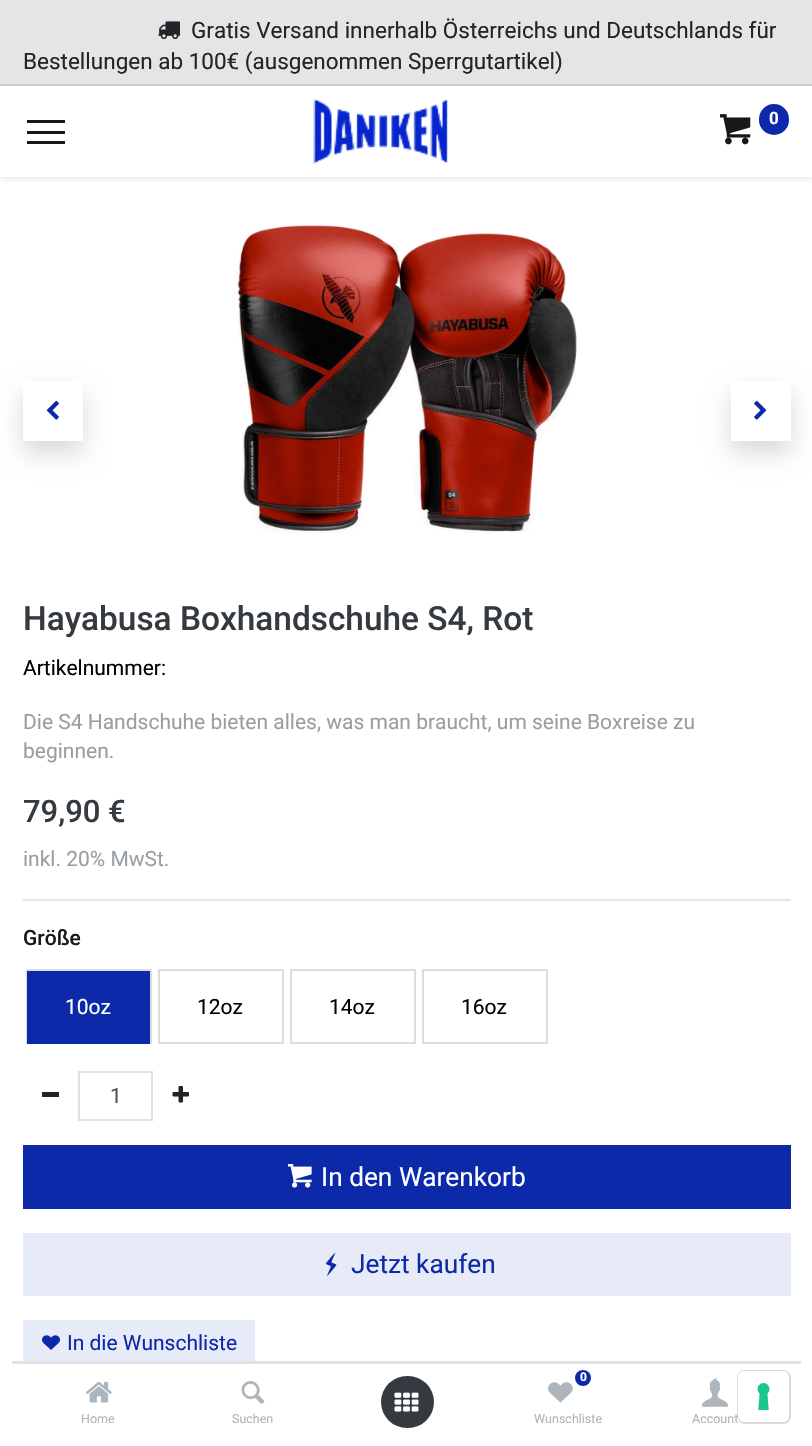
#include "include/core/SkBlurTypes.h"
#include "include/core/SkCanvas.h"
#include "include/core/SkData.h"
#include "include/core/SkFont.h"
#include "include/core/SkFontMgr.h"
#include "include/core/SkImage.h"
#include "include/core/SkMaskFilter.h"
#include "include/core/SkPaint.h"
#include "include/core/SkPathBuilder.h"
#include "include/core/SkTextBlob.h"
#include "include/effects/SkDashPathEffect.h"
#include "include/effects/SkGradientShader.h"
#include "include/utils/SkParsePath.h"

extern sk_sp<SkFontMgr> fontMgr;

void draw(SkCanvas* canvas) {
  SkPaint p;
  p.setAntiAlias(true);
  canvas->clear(SK_ColorWHITE);
  p.setColor(SkColorSetRGB(229, 229, 229));
  canvas->drawRect(SkRect::MakeLTRB(0, 0, 812, 84), p);
  p.setColor(SkColorSetRGB(205, 206, 206));
  canvas->drawRect(SkRect::MakeLTRB(0, 84, 812, 86), p);
  canvas->drawImageRect(SkImages::DeferredFromEncodedData(SkData::MakeFromFileName("images/1.png")), SkRect::MakeLTRB(158, 21, 180, 40), SkSamplingOptions());
  canvas->save();
  canvas->clipRect(SkRect::MakeLTRB(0, 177, 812, 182));
  p.setColor(SkColorSetARGB(18, 0, 0, 0));
  p.setMaskFilter(SkMaskFilter::MakeBlur(kNormal_SkBlurStyle, 3));
  canvas->drawRect(SkRect::MakeLTRB(0, 89, 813, 180), p);
  p.setMaskFilter(nullptr);
  canvas->restore();
  canvas->drawImageRect(SkImages::DeferredFromEncodedData(SkData::MakeFromFileName("images/2.png")), SkRect::MakeLTRB(313, 98, 448, 164), SkSamplingOptions());
  canvas->drawImageRect(SkImages::DeferredFromEncodedData(SkData::MakeFromFileName("images/3.png")), SkRect::MakeLTRB(720, 114, 751, 145), SkSamplingOptions());
  p.setColor(SkColorSetRGB(12, 41, 170));
  canvas->drawRoundRect(SkRect::MakeLTRB(759, 104, 789, 135), 15, 15, p);
  p.setColor(SkColorSetRGB(24, 24, 27));
  canvas->drawRect(SkRect::MakeLTRB(27, 120, 65, 123), p);
  canvas->drawRect(SkRect::MakeLTRB(27, 131, 65, 134), p);
  canvas->drawRect(SkRect::MakeLTRB(27, 141, 65, 144), p);
  p.setColor(SkColorSetARGB(38, 0, 0, 0));
  p.setMaskFilter(SkMaskFilter::MakeBlur(kNormal_SkBlurStyle, 12));
  canvas->drawRect(SkRect::MakeLTRB(23, 393, 83, 453), p);
  p.setMaskFilter(nullptr);
  p.setColor(SK_ColorWHITE);
  canvas->drawRect(SkRect::MakeLTRB(23, 381, 83, 441), p);
  canvas->drawImageRect(SkImages::DeferredFromEncodedData(SkData::MakeFromFileName("images/4.png")), SkRect::MakeLTRB(46, 400, 59, 420), SkSamplingOptions());
  canvas->drawImageRect(SkImages::DeferredFromEncodedData(SkData::MakeFromFileName("images/5.png")), SkRect::MakeLTRB(236, 225, 577, 534), SkSamplingOptions());
  p.setColor(SkColorSetARGB(38, 0, 0, 0));
  p.setMaskFilter(SkMaskFilter::MakeBlur(kNormal_SkBlurStyle, 12));
  canvas->drawRect(SkRect::MakeLTRB(731, 393, 791, 453), p);
  p.setMaskFilter(nullptr);
  p.setColor(SK_ColorWHITE);
  canvas->drawRect(SkRect::MakeLTRB(731, 381, 791, 441), p);
  canvas->drawImageRect(SkImages::DeferredFromEncodedData(SkData::MakeFromFileName("images/6.png")), SkRect::MakeLTRB(754, 400, 767, 420), SkSamplingOptions());
  p.setColor(SkColorSetRGB(230, 230, 230));
  canvas->drawRect(SkRect::MakeLTRB(23, 899, 791, 901), p);
  p.setStyle(SkPaint::kStroke_Style);
  p.setStrokeWidth(2);
  p.setColor(SkColorSetRGB(221, 221, 221));
  canvas->drawRect(SkRect::MakeLTRB(27, 970, 151, 1043), p);
  p.setStyle(SkPaint::kFill_Style);
  p.setColor(SkColorSetRGB(12, 41, 170));
  canvas->drawRect(SkRect::MakeLTRB(27, 971, 150, 1044), p);
  p.setStyle(SkPaint::kStroke_Style);
  p.setColor(SkColorSetRGB(221, 221, 221));
  canvas->drawRect(SkRect::MakeLTRB(159, 970, 283, 1043), p);
  canvas->drawRect(SkRect::MakeLTRB(291, 970, 415, 1043), p);
  canvas->drawRect(SkRect::MakeLTRB(423, 970, 547, 1043), p);
  p.setStyle(SkPaint::kFill_Style);
  p.setColor(SkColorSetRGB(33, 37, 41));
  canvas->drawRect(SkRect::MakeLTRB(42, 1092, 59, 1097), p);
  p.setStyle(SkPaint::kStroke_Style);
  p.setColor(SkColorSetRGB(222, 226, 230));
  canvas->drawRect(SkRect::MakeLTRB(79, 1072, 152, 1120), p);
  canvas->drawImageRect(SkImages::DeferredFromEncodedData(SkData::MakeFromFileName("images/7.png")), SkRect::MakeLTRB(172, 1086, 189, 1103), SkSamplingOptions());
  p.setStyle(SkPaint::kFill_Style);
  p.setColor(SkColorSetRGB(12, 41, 170));
  canvas->drawRect(SkRect::MakeLTRB(23, 1145, 791, 1209), p);
  canvas->drawImageRect(SkImages::DeferredFromEncodedData(SkData::MakeFromFileName("images/8.png")), SkRect::MakeLTRB(288, 1164, 312, 1188), SkSamplingOptions());
  p.setColor(SkColorSetRGB(231, 234, 247));
  canvas->drawRect(SkRect::MakeLTRB(23, 1233, 791, 1296), p);
  canvas->drawImageRect(SkImages::DeferredFromEncodedData(SkData::MakeFromFileName("images/9.png")), SkRect::MakeLTRB(325, 1252, 337, 1276), SkSamplingOptions());
  canvas->drawRect(SkRect::MakeLTRB(23, 1320, 255, 1361), p);
  canvas->drawImageRect(SkImages::DeferredFromEncodedData(SkData::MakeFromFileName("images/10.png")), SkRect::MakeLTRB(42, 1335, 60, 1350), SkSamplingOptions());
  p.setColor(SkColorSetRGB(222, 226, 230));
  canvas->drawRect(SkRect::MakeLTRB(12, 1361, 801, 1364), p);
  canvas->drawImageRect(SkImages::DeferredFromEncodedData(SkData::MakeFromFileName("images/11.png")), SkRect::MakeLTRB(86, 1381, 112, 1403), SkSamplingOptions());
  canvas->drawImageRect(SkImages::DeferredFromEncodedData(SkData::MakeFromFileName("images/12.png")), SkRect::MakeLTRB(241, 1381, 265, 1404), SkSamplingOptions());
  p.setColor(SkColorSetRGB(52, 58, 64));
  canvas->drawRoundRect(SkRect::MakeLTRB(381, 1376, 434, 1428), 26, 26, p);
  canvas->drawImageRect(SkImages::DeferredFromEncodedData(SkData::MakeFromFileName("images/13.png")), SkRect::MakeLTRB(394, 1392, 419, 1412), SkSamplingOptions());
  p.setColor(SkColorSetRGB(12, 41, 170));
  canvas->drawCircle(583, 1378, 8, p);
  canvas->drawImageRect(SkImages::DeferredFromEncodedData(SkData::MakeFromFileName("images/14.png")), SkRect::MakeLTRB(548, 1382, 573, 1403), SkSamplingOptions());
  canvas->drawImageRect(SkImages::DeferredFromEncodedData(SkData::MakeFromFileName("images/15.png")), SkRect::MakeLTRB(701, 1378, 728, 1407), SkSamplingOptions());
  SkFont font1(fontMgr->matchFamilyStyle("Roboto", SkFontStyle::Normal()), 22.5f);
  font1.setSubpixel(true);
  p.setColor(SkColorSetRGB(33, 37, 41));
  canvas->drawString("Gratis Versand innerhalb Österreichs und Deutschlands für", 191, 38, font1, p);
  canvas->drawString("Bestellungen ab 100€ (ausgenommen Sperrgutartikel)", 23, 69, font1, p);
  SkFont font2(fontMgr->matchFamilyStyle("Roboto", SkFontStyle::Bold()), 17);
  font2.setSubpixel(true);
  p.setColor(SK_ColorWHITE);
  canvas->drawString("0", 769, 124, font2, p);
  SkFont font3(fontMgr->matchFamilyStyle("Roboto", SkFontStyle(500, SkFontStyle::kNormal_Width, SkFontStyle::kUpright_Slant)), 33.4f);
  font3.setSubpixel(true);
  p.setColor(SkColorSetRGB(52, 58, 64));
  canvas->drawString("Hayabusa Boxhandschuhe S4, Rot", 23, 630, font3, p);
  SkFont font4(fontMgr->matchFamilyStyle("Roboto", SkFontStyle::Normal()), 21);
  font4.setSubpixel(true);
  p.setColor(SK_ColorBLACK);
  canvas->drawString("Artikelnummer:", 23, 675, font4, p);
  p.setColor(SkColorSetRGB(152, 158, 164));
  canvas->drawString("Die S4 Handschuhe bieten alles, was man braucht, um seine Boxreise zu", 23, 729, font4, p);
  canvas->drawString("beginnen.", 23, 758, font4, p);
  SkFont font5(fontMgr->matchFamilyStyle("Roboto", SkFontStyle(500, SkFontStyle::kNormal_Width, SkFontStyle::kUpright_Slant)), 31);
  font5.setSubpixel(true);
  p.setColor(SkColorSetRGB(52, 58, 64));
  canvas->drawString("79,90 €", 23, 822, font5, p);
  p.setColor(SkColorSetRGB(152, 158, 164));
  canvas->drawString("inkl. 20% MwSt.", 23, 866, font4, p);
  SkFont font6(fontMgr->matchFamilyStyle("Roboto", SkFontStyle(500, SkFontStyle::kNormal_Width, SkFontStyle::kUpright_Slant)), 21);
  font6.setSubpixel(true);
  p.setColor(SkColorSetRGB(24, 24, 27));
  canvas->drawString("Größe", 23, 945, font6, p);
  p.setColor(SK_ColorWHITE);
  canvas->drawString("10oz", 65, 1014, font4, p);
  p.setColor(SK_ColorBLACK);
  canvas->drawString("12oz", 197, 1014, font4, p);
  canvas->drawString("14oz", 329, 1014, font4, p);
  canvas->drawString("16oz", 461, 1014, font4, p);
  p.setColor(SkColorSetRGB(73, 80, 87));
  canvas->drawString("1", 110, 1103, font4, p);
  SkFont font7(fontMgr->matchFamilyStyle("Roboto", SkFontStyle::Normal()), 26.25f);
  font7.setSubpixel(true);
  p.setColor(SK_ColorWHITE);
  canvas->drawString("In den Warenkorb", 321, 1186, font7, p);
  p.setColor(SkColorSetRGB(12, 41, 170));
  canvas->drawString("Jetzt kaufen", 351, 1273, font7, p);
  canvas->drawString("In die Wunschliste", 67, 1350, font4, p);
  SkFont font8(fontMgr->matchFamilyStyle("Roboto", SkFontStyle::Normal()), 12.5f);
  font8.setSubpixel(true);
  p.setColor(SkColorSetRGB(173, 181, 189));
  canvas->drawString("Home", 81, 1423, font8, p);
  canvas->drawString("Suchen", 232, 1423, font8, p);
  SkFont font9(fontMgr->matchFamilyStyle("Roboto", SkFontStyle::Bold()), 12);
  font9.setSubpixel(true);
  p.setColor(SK_ColorWHITE);
  canvas->drawString("0", 580, 1381, font9, p);
  p.setColor(SkColorSetRGB(173, 181, 189));
  canvas->drawString("Wunschliste", 534, 1423, font8, p);
  canvas->drawString("Account", 692, 1423, font8, p);
  p.setStyle(SkPaint::kStroke_Style);
  p.setColor(SkColorSetARGB(38, 0, 0, 0));
  canvas->drawRoundRect(SkRect::MakeLTRB(738, 1371, 790, 1423), 7, 7, p);
  p.setStyle(SkPaint::kFill_Style);
  p.setColor(SK_ColorWHITE);
  canvas->drawRoundRect(SkRect::MakeLTRB(738, 1371, 789, 1422), 6, 6, p);
  canvas->drawImageRect(SkImages::DeferredFromEncodedData(SkData::MakeFromFileName("images/16.png")), SkRect::MakeLTRB(757, 1383, 770, 1410), SkSamplingOptions());
}
